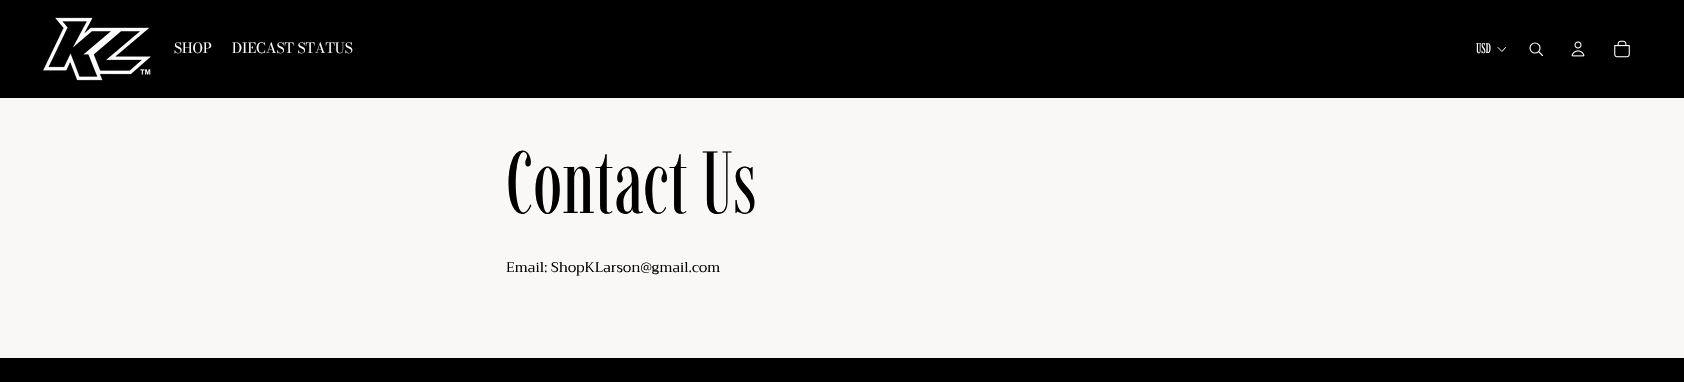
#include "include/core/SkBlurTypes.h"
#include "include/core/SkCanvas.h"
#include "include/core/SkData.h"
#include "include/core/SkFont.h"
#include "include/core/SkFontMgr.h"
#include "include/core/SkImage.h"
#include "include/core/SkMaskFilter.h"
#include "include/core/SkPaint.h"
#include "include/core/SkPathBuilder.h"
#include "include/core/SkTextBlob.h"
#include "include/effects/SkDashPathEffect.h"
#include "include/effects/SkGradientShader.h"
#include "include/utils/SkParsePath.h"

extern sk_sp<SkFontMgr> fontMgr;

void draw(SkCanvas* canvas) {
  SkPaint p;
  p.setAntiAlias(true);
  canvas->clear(SkColorSetRGB(249, 248, 246));
  p.setColor(SK_ColorBLACK);
  canvas->drawRect(SkRect::MakeLTRB(0, 0, 1684, 98), p);
  canvas->drawImageRect(SkImages::DeferredFromEncodedData(SkData::MakeFromFileName("images/1.png")), SkRect::MakeLTRB(43, 17, 151, 81), SkSamplingOptions());
  p.setStyle(SkPaint::kStroke_Style);
  p.setStrokeWidth(1);
  p.setStrokeCap(SkPaint::kRound_Cap);
  p.setStrokeJoin(SkPaint::kRound_Join);
  p.setColor(SK_ColorWHITE);
  canvas->drawPath(SkPathBuilder().moveTo(1505.5f, 47.5f).lineTo(1502, 51.5f).lineTo(1498, 47.5f).detach(), p);
  p.setStrokeWidth(1.1f);
  p.setStrokeCap(SkPaint::kButt_Cap);
  p.setStrokeJoin(SkPaint::kMiter_Join);
  canvas->drawCircle(1535, 48, 5, p);
  p.setStrokeCap(SkPaint::kRound_Cap);
  p.setStrokeJoin(SkPaint::kRound_Join);
  canvas->drawPath(SkPathBuilder().moveTo(1539, 52).lineTo(1542.5f, 55.5f).detach(), p);
  canvas->drawImageRect(SkImages::DeferredFromEncodedData(SkData::MakeFromFileName("images/2.png")), SkRect::MakeLTRB(1571, 41, 1585, 57), SkSamplingOptions());
  canvas->drawImageRect(SkImages::DeferredFromEncodedData(SkData::MakeFromFileName("images/3.png")), SkRect::MakeLTRB(1614, 40, 1630, 58), SkSamplingOptions());
  p.setStyle(SkPaint::kFill_Style);
  p.setColor(SK_ColorBLACK);
  canvas->drawRect(SkRect::MakeLTRB(0, 358, 1684, 382), p);
  SkFont font1(fontMgr->matchFamilyStyle("Bodoni Moda", SkFontStyle::Normal()), 14);
  font1.setSubpixel(true);
  p.setColor(SK_ColorWHITE);
  canvas->drawString("SHOP", 174, 53, font1, p);
  canvas->drawString("DIECAST STATUS", 232, 53, font1, p);
  SkFont font2(fontMgr->matchFamilyStyle("Imbue", SkFontStyle::Normal()), 14);
  font2.setSubpixel(true);
  canvas->drawString("USD", 1476, 53, font2, p);
  SkFont font3(fontMgr->matchFamilyStyle("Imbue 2", SkFontStyle::Normal()), 88);
  font3.setSubpixel(true);
  p.setColor(SK_ColorBLACK);
  canvas->drawString("Contact Us", 506, 213, font3, p);
  SkFont font4(fontMgr->matchFamilyStyle("Trirong", SkFontStyle::Normal()), 14);
  font4.setSubpixel(true);
  canvas->drawString("Email: ShopKLarson@gmail.com", 506, 272, font4, p);
}
